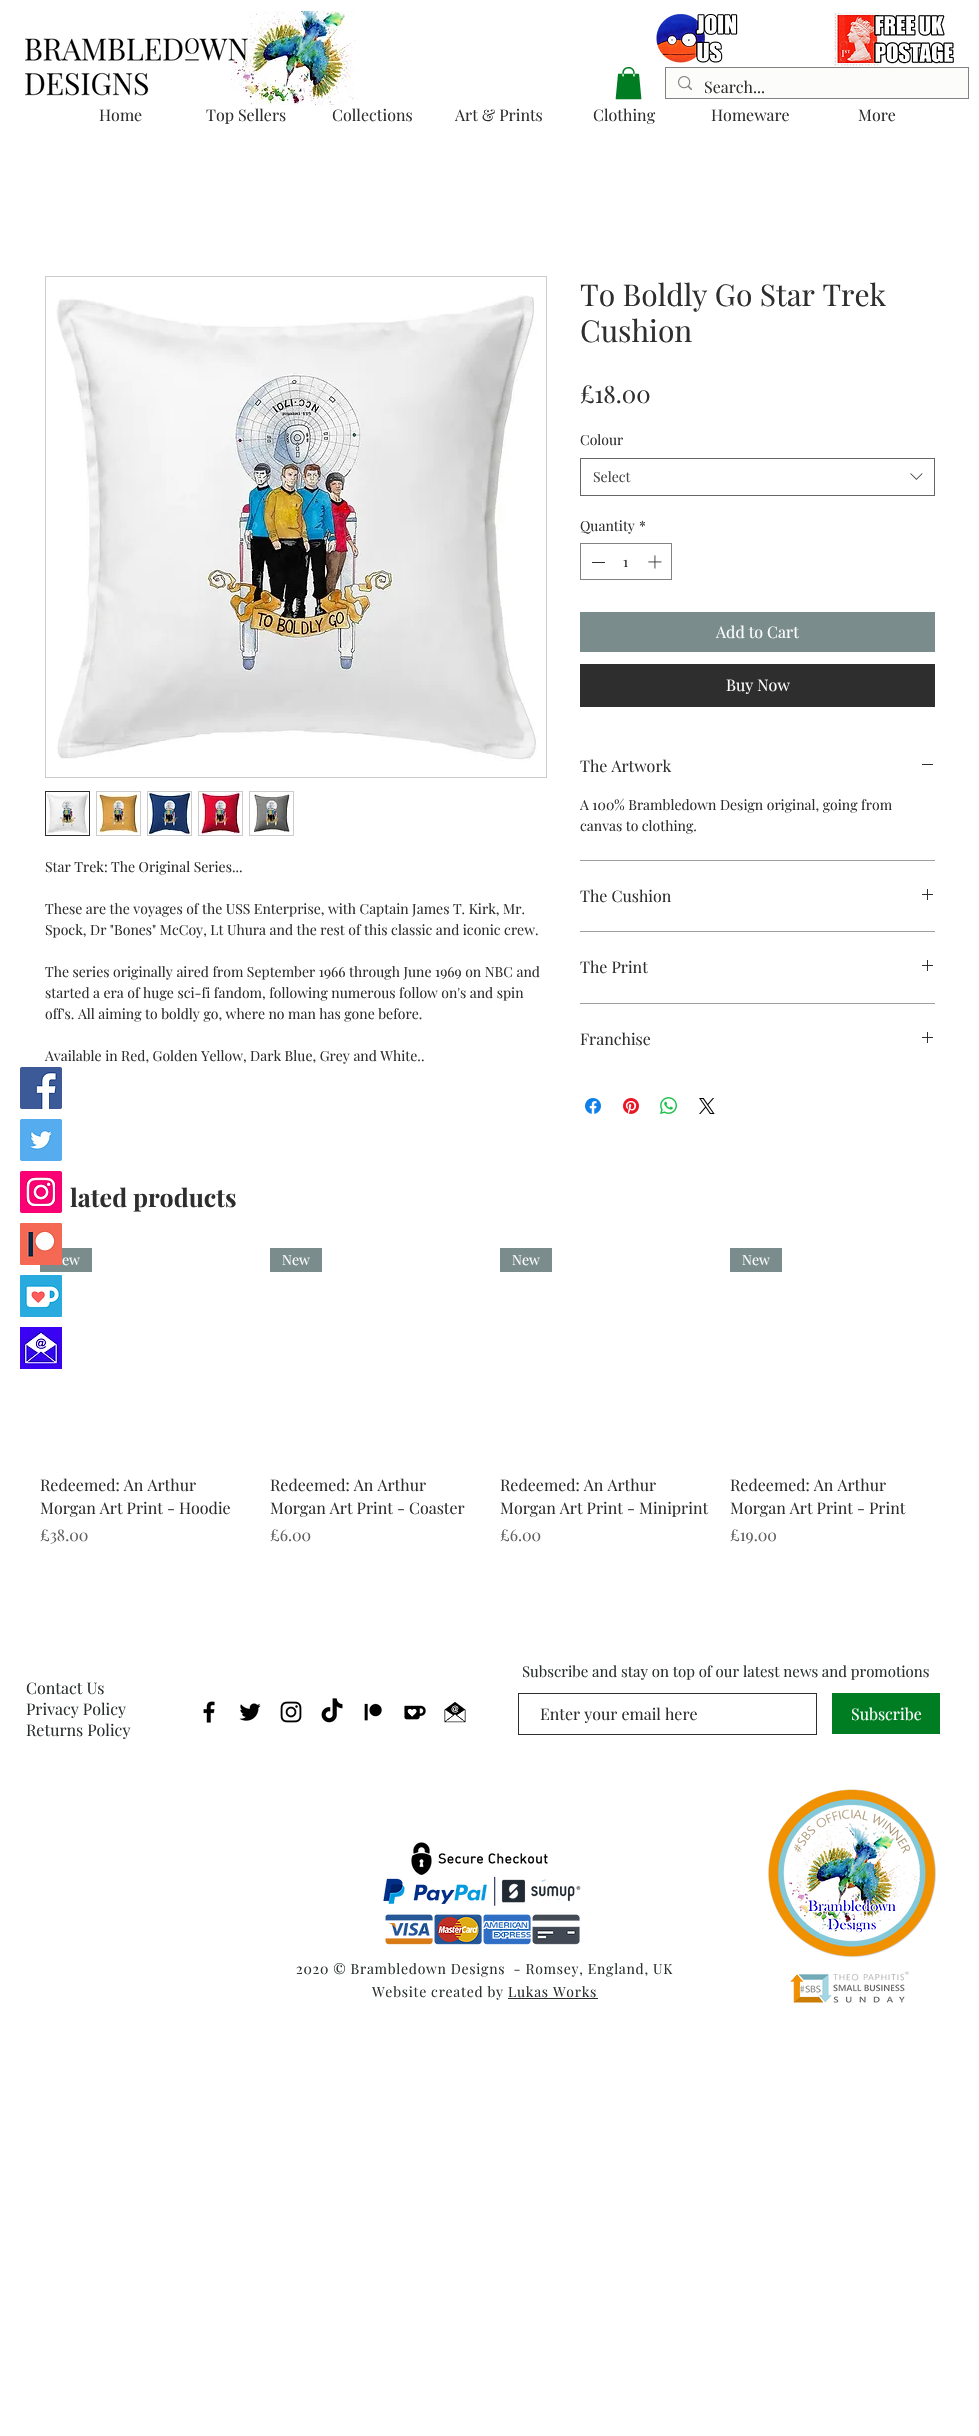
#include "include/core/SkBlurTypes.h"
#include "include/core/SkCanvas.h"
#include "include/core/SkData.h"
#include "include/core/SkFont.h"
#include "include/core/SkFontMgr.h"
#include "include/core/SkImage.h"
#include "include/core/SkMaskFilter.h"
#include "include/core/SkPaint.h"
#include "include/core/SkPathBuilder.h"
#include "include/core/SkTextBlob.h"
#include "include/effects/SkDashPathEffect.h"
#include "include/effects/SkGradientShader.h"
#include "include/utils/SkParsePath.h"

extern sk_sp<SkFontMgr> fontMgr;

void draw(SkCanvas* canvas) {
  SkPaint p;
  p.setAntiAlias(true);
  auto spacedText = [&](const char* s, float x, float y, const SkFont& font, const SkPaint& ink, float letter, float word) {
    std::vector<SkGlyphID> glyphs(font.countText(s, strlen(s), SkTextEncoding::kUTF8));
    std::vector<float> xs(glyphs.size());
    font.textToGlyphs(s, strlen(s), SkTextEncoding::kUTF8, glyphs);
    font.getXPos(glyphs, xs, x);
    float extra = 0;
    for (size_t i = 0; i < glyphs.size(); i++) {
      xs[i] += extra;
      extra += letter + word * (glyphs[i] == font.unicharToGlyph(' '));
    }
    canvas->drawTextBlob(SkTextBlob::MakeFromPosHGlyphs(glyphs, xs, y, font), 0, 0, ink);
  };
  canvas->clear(SK_ColorWHITE);
  canvas->drawImageRect(SkImages::DeferredFromEncodedData(SkData::MakeFromFileName("images/2.png")), SkRect::MakeLTRB(231, 11, 355, 105), SkSamplingOptions());
  canvas->drawImageRect(SkImages::DeferredFromEncodedData(SkData::MakeFromFileName("images/1.png")), SkRect::MakeLTRB(25, 38, 248, 96), SkSamplingOptions());
  canvas->drawImageRect(SkImages::DeferredFromEncodedData(SkData::MakeFromFileName("images/3.png")), SkRect::MakeLTRB(615, 67, 642, 100), SkSamplingOptions());
  canvas->drawImageRect(SkImages::DeferredFromEncodedData(SkData::MakeFromFileName("images/4.png")), SkRect::MakeLTRB(656, 14, 738, 63), SkSamplingOptions());
  canvas->drawImageRect(SkImages::DeferredFromEncodedData(SkData::MakeFromFileName("images/5.png")), SkRect::MakeLTRB(834, 12, 954, 66), SkSamplingOptions());
  p.setStyle(SkPaint::kStroke_Style);
  p.setStrokeWidth(1);
  p.setColor(SkColorSetRGB(130, 130, 130));
  canvas->drawRect(SkRect::MakeLTRB(665.5f, 67.5f, 968.5f, 98.5f), p);
  p.setStyle(SkPaint::kFill_Style);
  p.setColor(SkColorSetRGB(252, 252, 250));
  canvas->drawRect(SkRect::MakeLTRB(666, 68, 968, 98), p);
  canvas->drawImageRect(SkImages::DeferredFromEncodedData(SkData::MakeFromFileName("images/6.png")), SkRect::MakeLTRB(678, 76, 692, 90), SkSamplingOptions());
  p.setStyle(SkPaint::kStroke_Style);
  p.setColor(SkColorSetRGB(204, 204, 204));
  canvas->drawRect(SkRect::MakeLTRB(45.5f, 276.5f, 546.5f, 777.5f), p);
  canvas->drawImageRect(SkImages::DeferredFromEncodedData(SkData::MakeFromFileName("images/7.png")), SkRect::MakeLTRB(56, 295, 538, 761), SkSamplingOptions());
  p.setColor(SkColorSetRGB(47, 46, 46));
  canvas->drawRect(SkRect::MakeLTRB(45.5f, 791.5f, 89.5f, 835.5f), p);
  canvas->drawImageRect(SkImages::DeferredFromEncodedData(SkData::MakeFromFileName("images/8.png")), SkRect::MakeLTRB(46, 792, 89, 835), SkSamplingOptions());
  p.setColor(SkColorSetRGB(204, 204, 204));
  canvas->drawRect(SkRect::MakeLTRB(96.5f, 791.5f, 140.5f, 835.5f), p);
  canvas->drawImageRect(SkImages::DeferredFromEncodedData(SkData::MakeFromFileName("images/9.png")), SkRect::MakeLTRB(97, 792, 139, 833), SkSamplingOptions());
  canvas->drawRect(SkRect::MakeLTRB(147.5f, 791.5f, 191.5f, 835.5f), p);
  canvas->drawImageRect(SkImages::DeferredFromEncodedData(SkData::MakeFromFileName("images/10.png")), SkRect::MakeLTRB(148, 792, 191, 835), SkSamplingOptions());
  canvas->drawRect(SkRect::MakeLTRB(198.5f, 791.5f, 242.5f, 835.5f), p);
  canvas->drawImageRect(SkImages::DeferredFromEncodedData(SkData::MakeFromFileName("images/11.png")), SkRect::MakeLTRB(199, 792, 242, 835), SkSamplingOptions());
  canvas->drawRect(SkRect::MakeLTRB(249.5f, 791.5f, 293.5f, 835.5f), p);
  canvas->drawImageRect(SkImages::DeferredFromEncodedData(SkData::MakeFromFileName("images/12.png")), SkRect::MakeLTRB(254, 792, 290, 832), SkSamplingOptions());
  p.setColor(SkColorSetRGB(102, 102, 102));
  canvas->drawRect(SkRect::MakeLTRB(580.5f, 458.5f, 934.5f, 495.5f), p);
  canvas->drawImageRect(SkImages::DeferredFromEncodedData(SkData::MakeFromFileName("images/13.png")), SkRect::MakeLTRB(910, 473, 923, 480), SkSamplingOptions());
  p.setColor(SkColorSetRGB(130, 130, 130));
  canvas->drawRect(SkRect::MakeLTRB(580.5f, 543.5f, 671.5f, 579.5f), p);
  p.setStyle(SkPaint::kFill_Style);
  p.setColor(SkColorSetRGB(47, 46, 46));
  canvas->drawRect(SkRect::MakeLTRB(592, 562, 605, 563), p);
  canvas->drawImageRect(SkImages::DeferredFromEncodedData(SkData::MakeFromFileName("images/14.png")), SkRect::MakeLTRB(648, 555, 662, 569), SkSamplingOptions());
  p.setColor(SkColorSetRGB(122, 140, 140));
  canvas->drawRect(SkRect::MakeLTRB(580, 612, 935, 652), p);
  p.setColor(SkColorSetRGB(47, 46, 46));
  canvas->drawRect(SkRect::MakeLTRB(580, 664, 935, 707), p);
  p.setColor(SkColorSetRGB(160, 160, 159));
  canvas->drawRect(SkRect::MakeLTRB(580, 860, 935, 861), p);
  p.setColor(SkColorSetRGB(47, 46, 46));
  canvas->drawRect(SkRect::MakeLTRB(922, 764, 933, 765), p);
  p.setColor(SkColorSetRGB(160, 160, 159));
  canvas->drawRect(SkRect::MakeLTRB(580, 931, 935, 932), p);
  canvas->drawImageRect(SkImages::DeferredFromEncodedData(SkData::MakeFromFileName("images/15.png")), SkRect::MakeLTRB(922, 889, 933, 900), SkSamplingOptions());
  canvas->drawRect(SkRect::MakeLTRB(580, 1003, 935, 1004), p);
  canvas->drawImageRect(SkImages::DeferredFromEncodedData(SkData::MakeFromFileName("images/15.png")), SkRect::MakeLTRB(922, 960, 933, 971), SkSamplingOptions());
  canvas->drawImageRect(SkImages::DeferredFromEncodedData(SkData::MakeFromFileName("images/15.png")), SkRect::MakeLTRB(922, 1032, 933, 1043), SkSamplingOptions());
  canvas->drawImageRect(SkImages::DeferredFromEncodedData(SkData::MakeFromFileName("images/16.png")), SkRect::MakeLTRB(585, 1098, 601, 1114), SkSamplingOptions());
  canvas->drawImageRect(SkImages::DeferredFromEncodedData(SkData::MakeFromFileName("images/17.png")), SkRect::MakeLTRB(623, 1098, 639, 1114), SkSamplingOptions());
  canvas->drawImageRect(SkImages::DeferredFromEncodedData(SkData::MakeFromFileName("images/18.png")), SkRect::MakeLTRB(660, 1097, 677, 1114), SkSamplingOptions());
  canvas->drawImageRect(SkImages::DeferredFromEncodedData(SkData::MakeFromFileName("images/19.png")), SkRect::MakeLTRB(699, 1098, 715, 1114), SkSamplingOptions());
  p.setColor(SkColorSetRGB(122, 140, 140));
  canvas->drawRect(SkRect::MakeLTRB(40, 1248, 92, 1272), p);
  canvas->drawRect(SkRect::MakeLTRB(270, 1248, 322, 1272), p);
  canvas->drawRect(SkRect::MakeLTRB(500, 1248, 552, 1272), p);
  canvas->drawRect(SkRect::MakeLTRB(730, 1248, 782, 1272), p);
  canvas->drawImageRect(SkImages::DeferredFromEncodedData(SkData::MakeFromFileName("images/20.png")), SkRect::MakeLTRB(20, 1067, 62, 1109), SkSamplingOptions());
  canvas->drawImageRect(SkImages::DeferredFromEncodedData(SkData::MakeFromFileName("images/21.png")), SkRect::MakeLTRB(20, 1119, 62, 1161), SkSamplingOptions());
  canvas->drawImageRect(SkImages::DeferredFromEncodedData(SkData::MakeFromFileName("images/22.png")), SkRect::MakeLTRB(20, 1171, 62, 1213), SkSamplingOptions());
  canvas->drawImageRect(SkImages::DeferredFromEncodedData(SkData::MakeFromFileName("images/23.png")), SkRect::MakeLTRB(20, 1223, 62, 1265), SkSamplingOptions());
  canvas->drawImageRect(SkImages::DeferredFromEncodedData(SkData::MakeFromFileName("images/24.png")), SkRect::MakeLTRB(20, 1275, 62, 1317), SkSamplingOptions());
  canvas->drawImageRect(SkImages::DeferredFromEncodedData(SkData::MakeFromFileName("images/25.png")), SkRect::MakeLTRB(20, 1327, 62, 1369), SkSamplingOptions());
  canvas->drawImageRect(SkImages::DeferredFromEncodedData(SkData::MakeFromFileName("images/26.png")), SkRect::MakeLTRB(203, 1701, 215, 1723), SkSamplingOptions());
  canvas->drawImageRect(SkImages::DeferredFromEncodedData(SkData::MakeFromFileName("images/27.png")), SkRect::MakeLTRB(239, 1703, 261, 1721), SkSamplingOptions());
  canvas->drawImageRect(SkImages::DeferredFromEncodedData(SkData::MakeFromFileName("images/28.png")), SkRect::MakeLTRB(280, 1701, 302, 1723), SkSamplingOptions());
  canvas->drawImageRect(SkImages::DeferredFromEncodedData(SkData::MakeFromFileName("images/29.png")), SkRect::MakeLTRB(321, 1698, 343, 1723), SkSamplingOptions());
  canvas->drawImageRect(SkImages::DeferredFromEncodedData(SkData::MakeFromFileName("images/30.png")), SkRect::MakeLTRB(364, 1703, 382, 1721), SkSamplingOptions());
  canvas->drawImageRect(SkImages::DeferredFromEncodedData(SkData::MakeFromFileName("images/31.png")), SkRect::MakeLTRB(404, 1705, 426, 1720), SkSamplingOptions());
  canvas->drawImageRect(SkImages::DeferredFromEncodedData(SkData::MakeFromFileName("images/32.png")), SkRect::MakeLTRB(444, 1702, 466, 1723), SkSamplingOptions());
  p.setStyle(SkPaint::kStroke_Style);
  p.setColor(SkColorSetRGB(47, 46, 46));
  canvas->drawRect(SkRect::MakeLTRB(518.5f, 1693.5f, 816.5f, 1734.5f), p);
  p.setStyle(SkPaint::kFill_Style);
  p.setColor(SkColorSetRGB(0, 124, 34));
  canvas->drawRect(SkRect::MakeLTRB(832, 1693, 940, 1734), p);
  canvas->drawImageRect(SkImages::DeferredFromEncodedData(SkData::MakeFromFileName("images/33.png")), SkRect::MakeLTRB(383, 1842, 581, 1945), SkSamplingOptions());
  canvas->drawImageRect(SkImages::DeferredFromEncodedData(SkData::MakeFromFileName("images/34.png")), SkRect::MakeLTRB(768, 1789, 936, 2003), SkSamplingOptions());
  p.setColor(SkColorSetRGB(41, 47, 47));
  canvas->drawRect(SkRect::MakeLTRB(508, 1998, 598, 1999), p);
  SkFont font1(fontMgr->matchFamilyStyle("Playfair Display", SkFontStyle::Normal()), 16);
  font1.setSubpixel(true);
  p.setColor(SkColorSetRGB(47, 46, 46));
  canvas->drawString("Search...", 704, 93, font1, p);
  canvas->drawString("Home", 99, 121, font1, p);
  canvas->drawString("Top Sellers", 206, 121, font1, p);
  canvas->drawString("Collections", 332, 121, font1, p);
  canvas->drawString("Art & Prints", 455, 121, font1, p);
  canvas->drawString("Clothing", 593, 121, font1, p);
  canvas->drawString("Homeware", 711, 121, font1, p);
  canvas->drawString("More", 858, 121, font1, p);
  SkFont font2(fontMgr->matchFamilyStyle("Playfair Display", SkFontStyle::Normal()), 14);
  font2.setSubpixel(true);
  canvas->drawString("Star Trek: The Original Series...", 45, 872, font2, p);
  canvas->drawString("These are the voyages of the USS Enterprise, with Captain James T. Kirk, Mr.", 45, 914, font2, p);
  canvas->drawString("Spock, Dr \"Bones\" McCoy, Lt Uhura and the rest of this classic and iconic crew.", 45, 935, font2, p);
  canvas->drawString("The series originally aired from September 1966 through June 1969 on NBC and", 45, 977, font2, p);
  canvas->drawString("started a era of huge sci-fi fandom, following numerous follow on's and spin", 45, 998, font2, p);
  canvas->drawString("off's. All aiming to boldly go, where no man has gone before.", 45, 1019, font2, p);
  canvas->drawString("Available in Red, Golden Yellow, Dark Blue, Grey and White..", 45, 1061, font2, p);
  SkFont font3(fontMgr->matchFamilyStyle("Playfair Display", SkFontStyle::Normal()), 30);
  font3.setSubpixel(true);
  canvas->drawString("To Boldly Go Star Trek", 580, 306, font3, p);
  canvas->drawString("Cushion", 580, 342, font3, p);
  SkFont font4(fontMgr->matchFamilyStyle("Playfair Display", SkFontStyle::Normal()), 24);
  font4.setSubpixel(true);
  canvas->drawString("£18.00", 580, 403, font4, p);
  canvas->drawString("Colour", 580, 445, font2, p);
  p.setColor(SkColorSetRGB(68, 68, 68));
  canvas->drawString("Select", 593, 482, font2, p);
  p.setColor(SkColorSetRGB(47, 46, 46));
  canvas->drawString("Quantity", 580, 531, font2, p);
  canvas->drawString("*", 639, 531, font2, p);
  canvas->drawString("1", 623, 567, font2, p);
  p.setColor(SK_ColorWHITE);
  canvas->drawString("Add to Cart", 716, 638, font1, p);
  canvas->drawString("Buy Now", 726, 691, font1, p);
  p.setColor(SkColorSetRGB(47, 46, 46));
  canvas->drawString("The Artwork", 580, 772, font1, p);
  canvas->drawString("A 100% Brambledown Design original, going from", 580, 810, font2, p);
  canvas->drawString("canvas to clothing.", 580, 831, font2, p);
  canvas->drawString("The Cushion", 580, 902, font1, p);
  canvas->drawString("The Print", 580, 973, font1, p);
  canvas->drawString("Franchise", 580, 1045, font1, p);
  SkFont font5(fontMgr->matchFamilyStyle("Playfair Display", SkFontStyle::Bold()), 25);
  font5.setSubpixel(true);
  canvas->drawString("lated products", 70, 1207, font5, p);
  p.setColor(SK_ColorWHITE);
  canvas->drawString("ew", 62, 1265, font2, p);
  p.setColor(SkColorSetRGB(47, 46, 46));
  canvas->drawString("Redeemed: An Arthur", 40, 1491, font1, p);
  canvas->drawString("Morgan Art Print - Hoodie", 40, 1514, font1, p);
  p.setColor(SkColorSetRGB(96, 94, 94));
  canvas->drawString("£38.00", 40, 1541, font1, p);
  p.setColor(SK_ColorWHITE);
  canvas->drawString("New", 282, 1265, font2, p);
  p.setColor(SkColorSetRGB(47, 46, 46));
  canvas->drawString("Redeemed: An Arthur", 270, 1491, font1, p);
  canvas->drawString("Morgan Art Print - Coaster", 270, 1514, font1, p);
  p.setColor(SkColorSetRGB(96, 94, 94));
  canvas->drawString("£6.00", 270, 1541, font1, p);
  p.setColor(SK_ColorWHITE);
  canvas->drawString("New", 512, 1265, font2, p);
  p.setColor(SkColorSetRGB(47, 46, 46));
  canvas->drawString("Redeemed: An Arthur", 500, 1491, font1, p);
  canvas->drawString("Morgan Art Print - Miniprint", 500, 1514, font1, p);
  p.setColor(SkColorSetRGB(96, 94, 94));
  canvas->drawString("£6.00", 500, 1541, font1, p);
  p.setColor(SK_ColorWHITE);
  canvas->drawString("New", 742, 1265, font2, p);
  p.setColor(SkColorSetRGB(47, 46, 46));
  canvas->drawString("Redeemed: An Arthur", 730, 1491, font1, p);
  canvas->drawString("Morgan Art Print - Print", 730, 1514, font1, p);
  p.setColor(SkColorSetRGB(96, 94, 94));
  canvas->drawString("£19.00", 730, 1541, font1, p);
  p.setColor(SkColorSetRGB(41, 47, 47));
  canvas->drawString("Contact Us", 26, 1694, font1, p);
  canvas->drawString("Privacy Policy", 26, 1715, font1, p);
  canvas->drawString("Returns Policy", 26, 1736, font1, p);
  SkFont font6(fontMgr->matchFamilyStyle("Playfair Display", SkFontStyle::Normal()), 15);
  font6.setSubpixel(true);
  canvas->drawString("Subscribe and stay on top of our latest news and promotions", 522, 1677, font6, p);
  p.setColor(SkColorSetRGB(47, 46, 46));
  canvas->drawString("Enter your email here", 540, 1720, font1, p);
  p.setColor(SK_ColorWHITE);
  canvas->drawString("Subscribe", 851, 1720, font1, p);
  p.setColor(SkColorSetRGB(41, 47, 47));
  spacedText("2020 © Brambledown Designs  - Romsey, England, UK", 296, 1974, font2, p, 0.7f, 0);
  spacedText("Website created by Lukas Works", 372, 1997, font2, p, 0.7f, 0);
}
